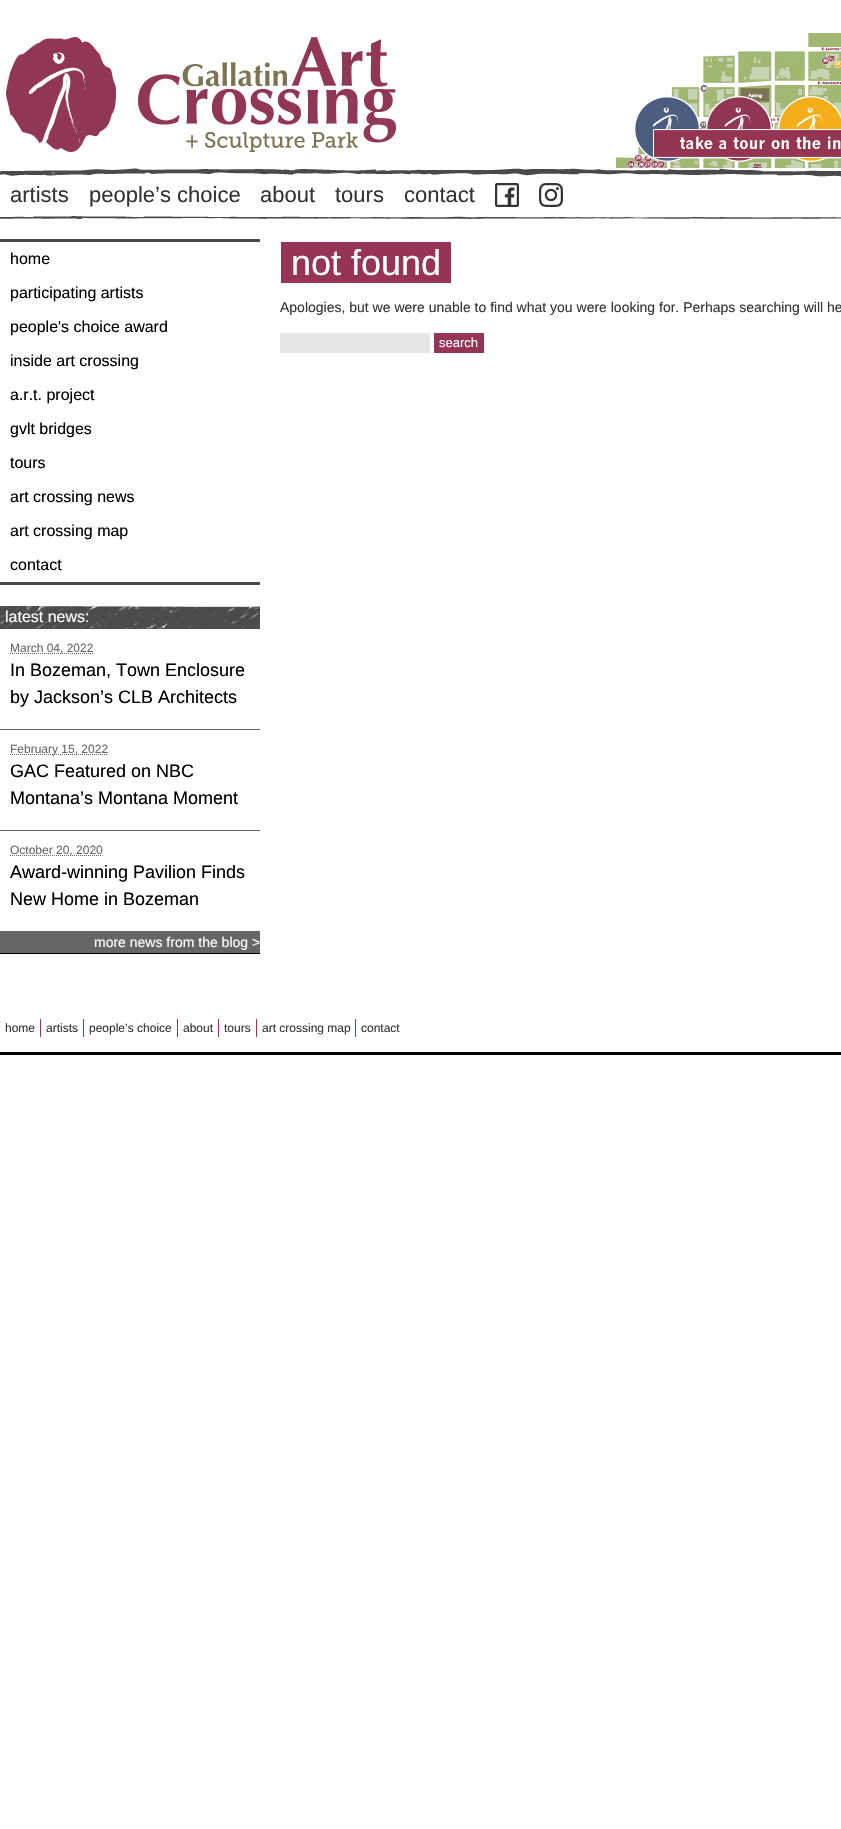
#include "include/core/SkBlurTypes.h"
#include "include/core/SkCanvas.h"
#include "include/core/SkData.h"
#include "include/core/SkFont.h"
#include "include/core/SkFontMgr.h"
#include "include/core/SkImage.h"
#include "include/core/SkMaskFilter.h"
#include "include/core/SkPaint.h"
#include "include/core/SkPathBuilder.h"
#include "include/core/SkTextBlob.h"
#include "include/effects/SkDashPathEffect.h"
#include "include/effects/SkGradientShader.h"
#include "include/utils/SkParsePath.h"

extern sk_sp<SkFontMgr> fontMgr;

void draw(SkCanvas* canvas) {
  SkPaint p;
  p.setAntiAlias(true);
  canvas->clear(SK_ColorWHITE);
  canvas->drawImageRect(SkImages::DeferredFromEncodedData(SkData::MakeFromFileName("images/1.png")), SkRect::MakeLTRB(6, 37, 396, 152), SkSamplingOptions());
  canvas->drawImageRect(SkImages::DeferredFromEncodedData(SkData::MakeFromFileName("images/2.png")), SkRect::MakeLTRB(616, 33, 841, 168), SkSamplingOptions());
  canvas->drawImageRect(SkImages::DeferredFromEncodedData(SkData::MakeFromFileName("images/3.png")), SkRect::MakeLTRB(0, 168, 841, 177), SkSamplingOptions());
  canvas->drawImageRect(SkImages::DeferredFromEncodedData(SkData::MakeFromFileName("images/4.png")), SkRect::MakeLTRB(495, 183, 519, 207), SkSamplingOptions());
  canvas->drawImageRect(SkImages::DeferredFromEncodedData(SkData::MakeFromFileName("images/5.png")), SkRect::MakeLTRB(539, 183, 563, 207), SkSamplingOptions());
  canvas->drawImageRect(SkImages::DeferredFromEncodedData(SkData::MakeFromFileName("images/6.png")), SkRect::MakeLTRB(0, 216, 841, 219), SkSamplingOptions());
  p.setColor(SkColorSetRGB(74, 74, 74));
  canvas->drawRect(SkRect::MakeLTRB(0, 239, 260, 242), p);
  canvas->drawRect(SkRect::MakeLTRB(0, 582, 260, 585), p);
  p.setColor(SK_ColorBLACK);
  canvas->drawRect(SkRect::MakeLTRB(0, 953, 260, 954), p);
  canvas->drawImageRect(SkImages::DeferredFromEncodedData(SkData::MakeFromFileName("images/7.png")), SkRect::MakeLTRB(0, 605, 260, 629), SkSamplingOptions());
  p.setColor(SkColorSetRGB(102, 102, 102));
  canvas->drawRect(SkRect::MakeLTRB(0, 729, 260, 730), p);
  p.setStyle(SkPaint::kStroke_Style);
  p.setStrokeWidth(1);
  p.setPathEffect(SkDashPathEffect::Make({{1, 1}}, 0));
  canvas->drawPath(SkPathBuilder().moveTo(10, 653.5f).lineTo(93.5f, 653.5f).detach(), p);
  p.setPathEffect(nullptr);
  p.setStyle(SkPaint::kFill_Style);
  canvas->drawRect(SkRect::MakeLTRB(0, 830, 260, 831), p);
  p.setStyle(SkPaint::kStroke_Style);
  p.setPathEffect(SkDashPathEffect::Make({{1, 1}}, 0));
  canvas->drawPath(SkPathBuilder().moveTo(10, 754.5f).lineTo(108, 754.5f).detach(), p);
  p.setPathEffect(nullptr);
  p.setStyle(SkPaint::kFill_Style);
  canvas->drawRect(SkRect::MakeLTRB(0, 931, 260, 953), p);
  p.setStyle(SkPaint::kStroke_Style);
  p.setPathEffect(SkDashPathEffect::Make({{1, 1}}, 0));
  canvas->drawPath(SkPathBuilder().moveTo(10, 855.5f).lineTo(102.5f, 855.5f).detach(), p);
  p.setPathEffect(nullptr);
  p.setStyle(SkPaint::kFill_Style);
  p.setColor(SkColorSetRGB(149, 53, 83));
  canvas->drawRect(SkRect::MakeLTRB(281, 242, 451, 283), p);
  p.setColor(SkColorSetRGB(230, 230, 230));
  canvas->drawRect(SkRect::MakeLTRB(280, 333, 430, 353), p);
  p.setColor(SkColorSetRGB(149, 53, 83));
  canvas->drawRect(SkRect::MakeLTRB(434, 333, 484, 353), p);
  p.setColor(SK_ColorBLACK);
  canvas->drawRect(SkRect::MakeLTRB(0, 1052, 841, 1055), p);
  p.setColor(SkColorSetRGB(149, 53, 83));
  canvas->drawRect(SkRect::MakeLTRB(40, 1019, 41, 1037), p);
  canvas->drawRect(SkRect::MakeLTRB(83, 1019, 84, 1037), p);
  canvas->drawRect(SkRect::MakeLTRB(177, 1019, 178, 1037), p);
  canvas->drawRect(SkRect::MakeLTRB(218, 1019, 219, 1037), p);
  canvas->drawRect(SkRect::MakeLTRB(256, 1019, 257, 1037), p);
  canvas->drawRect(SkRect::MakeLTRB(355, 1019, 356, 1037), p);
  SkFont font1(fontMgr->matchFamilyStyle("Liberation Sans", SkFontStyle::Normal()), 22);
  font1.setSubpixel(true);
  p.setColor(SkColorSetRGB(52, 52, 52));
  canvas->drawString("artists", 10, 202, font1, p);
  canvas->drawString("people’s choice", 89, 202, font1, p);
  canvas->drawString("about", 260, 202, font1, p);
  canvas->drawString("tours", 335, 202, font1, p);
  canvas->drawString("contact", 404, 202, font1, p);
  SkFont font2(fontMgr->matchFamilyStyle("Liberation Sans", SkFontStyle::Normal()), 16);
  font2.setSubpixel(true);
  p.setColor(SK_ColorBLACK);
  canvas->drawString("home", 10, 264, font2, p);
  canvas->drawString("participating artists", 10, 298, font2, p);
  canvas->drawString("people's choice award", 10, 332, font2, p);
  canvas->drawString("inside art crossing", 10, 366, font2, p);
  canvas->drawString("a.r.t. project", 10, 400, font2, p);
  canvas->drawString("gvlt bridges", 10, 434, font2, p);
  canvas->drawString("tours", 10, 468, font2, p);
  canvas->drawString("art crossing news", 10, 502, font2, p);
  canvas->drawString("art crossing map", 10, 536, font2, p);
  canvas->drawString("contact", 10, 570, font2, p);
  p.setColor(SK_ColorWHITE);
  canvas->drawString("latest news:", 5, 622, font2, p);
  SkFont font3(fontMgr->matchFamilyStyle("Liberation Sans", SkFontStyle::Normal()), 12);
  font3.setSubpixel(true);
  p.setColor(SkColorSetRGB(102, 102, 102));
  canvas->drawString("March 04, 2022", 10, 652, font3, p);
  SkFont font4(fontMgr->matchFamilyStyle("Liberation Sans", SkFontStyle::Normal()), 18);
  font4.setSubpixel(true);
  p.setColor(SK_ColorBLACK);
  canvas->drawString("In Bozeman, Town Enclosure", 10, 676, font4, p);
  canvas->drawString("by Jackson’s CLB Architects", 10, 703, font4, p);
  p.setColor(SkColorSetRGB(102, 102, 102));
  canvas->drawString("February 15, 2022", 10, 753, font3, p);
  p.setColor(SK_ColorBLACK);
  canvas->drawString("GAC Featured on NBC", 10, 777, font4, p);
  canvas->drawString("Montana’s Montana Moment", 10, 804, font4, p);
  p.setColor(SkColorSetRGB(102, 102, 102));
  canvas->drawString("October 20, 2020", 10, 854, font3, p);
  p.setColor(SK_ColorBLACK);
  canvas->drawString("Award-winning Pavilion Finds", 10, 878, font4, p);
  canvas->drawString("New Home in Bozeman", 10, 905, font4, p);
  SkFont font5(fontMgr->matchFamilyStyle("Liberation Sans", SkFontStyle::Normal()), 14);
  font5.setSubpixel(true);
  p.setColor(SK_ColorWHITE);
  canvas->drawString("more news from the blog >", 94, 947, font5, p);
  SkFont font6(fontMgr->matchFamilyStyle("Liberation Sans", SkFontStyle::Normal()), 36);
  font6.setSubpixel(true);
  canvas->drawString("not found", 291, 275, font6, p);
  p.setColor(SkColorSetRGB(52, 52, 52));
  canvas->drawString("Apologies, but we were unable to find what you were looking for. Perhaps searching will he", 280, 312, font5, p);
  SkFont font7(fontMgr->matchFamilyStyle("Liberation Sans", SkFontStyle::Normal()), 13);
  font7.setSubpixel(true);
  p.setColor(SK_ColorWHITE);
  canvas->drawString("search", 439, 347, font7, p);
  p.setColor(SkColorSetRGB(52, 52, 52));
  canvas->drawString("home", 5, 1032, font3, p);
  canvas->drawString("artists", 46, 1032, font3, p);
  canvas->drawString("people’s choice", 89, 1032, font3, p);
  canvas->drawString("about", 183, 1032, font3, p);
  canvas->drawString("tours", 224, 1032, font3, p);
  canvas->drawString("art crossing map", 262, 1032, font3, p);
  canvas->drawString("contact", 361, 1032, font3, p);
}
